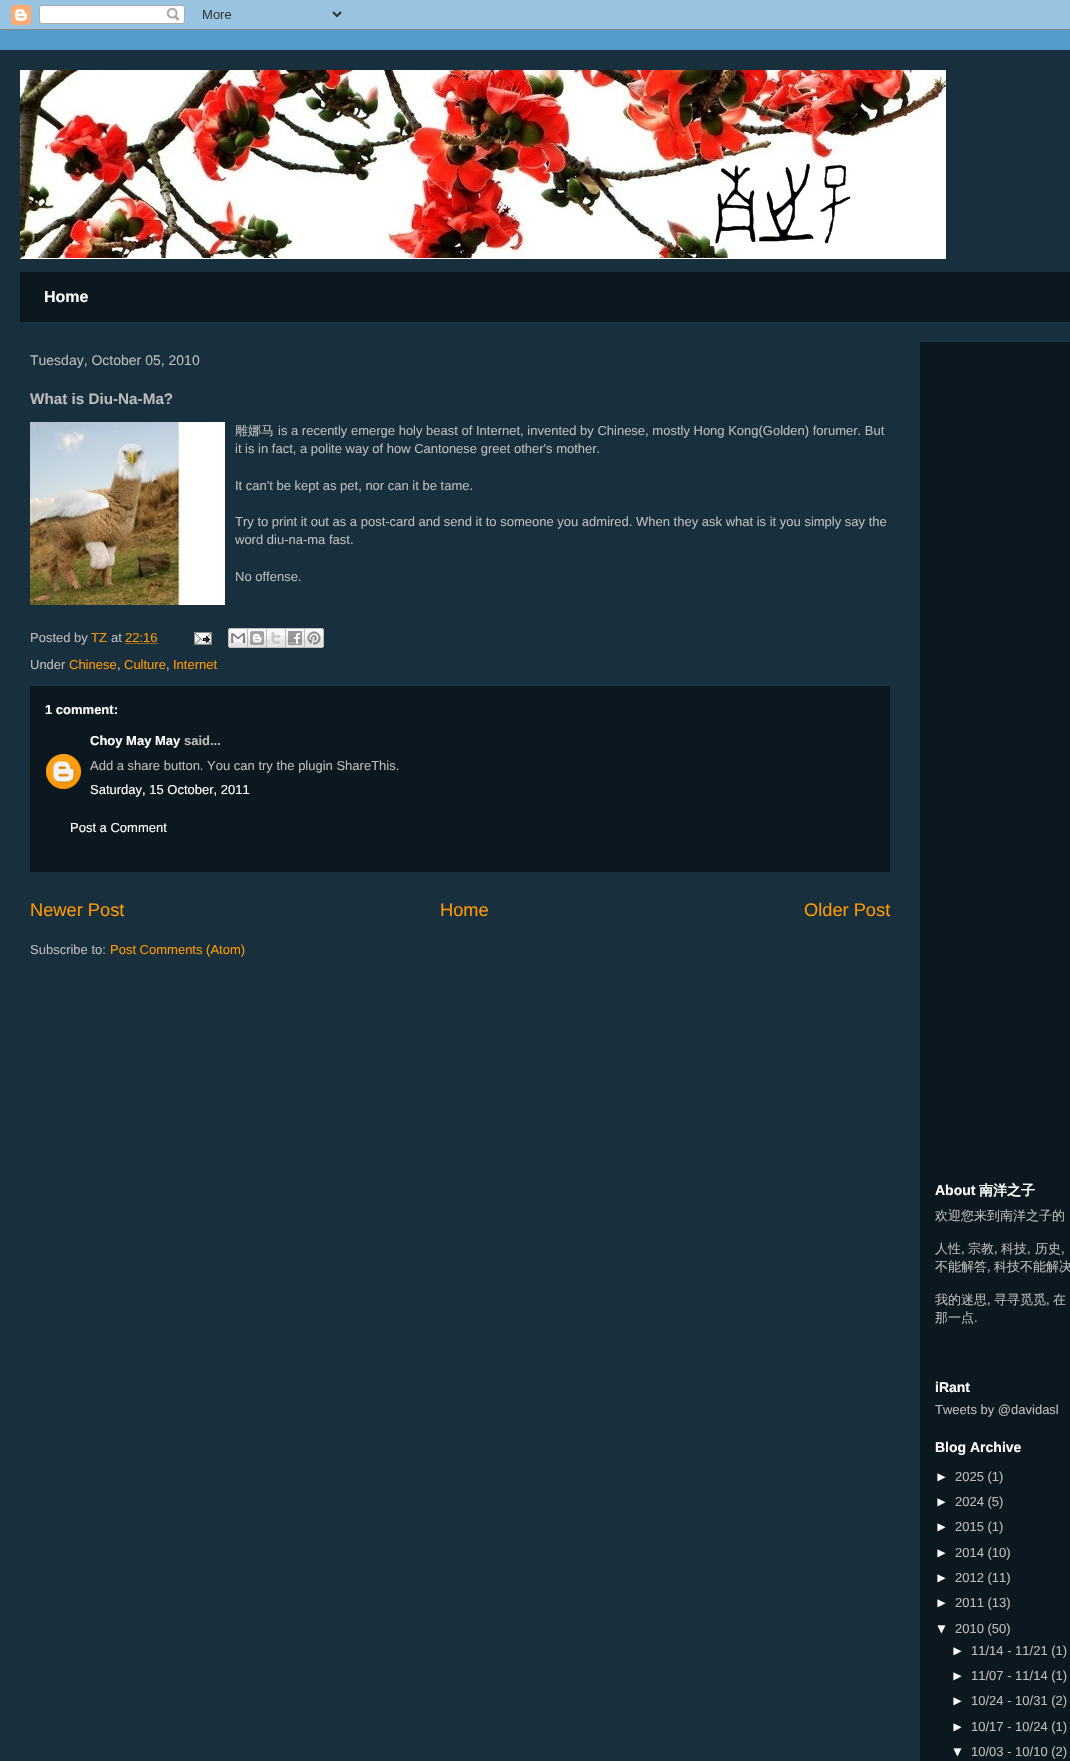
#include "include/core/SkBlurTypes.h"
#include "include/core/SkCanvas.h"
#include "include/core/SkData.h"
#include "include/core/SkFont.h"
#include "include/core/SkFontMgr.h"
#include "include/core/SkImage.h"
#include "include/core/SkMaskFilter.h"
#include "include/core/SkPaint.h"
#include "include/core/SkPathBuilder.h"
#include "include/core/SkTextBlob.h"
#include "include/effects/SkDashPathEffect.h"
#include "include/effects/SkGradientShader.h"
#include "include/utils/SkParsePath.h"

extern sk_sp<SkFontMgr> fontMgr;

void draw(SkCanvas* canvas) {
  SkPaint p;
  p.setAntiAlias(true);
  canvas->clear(SkColorSetRGB(83, 155, 205));
  canvas->drawImageRect(SkImages::DeferredFromEncodedData(SkData::MakeFromFileName("images/1.png")), SkRect::MakeLTRB(0, 0, 1070, 30), SkSamplingOptions());
  p.setColor(SkColorSetRGB(24, 47, 61));
  canvas->drawRect(SkRect::MakeLTRB(0, 50, 1070, 1761), p);
  canvas->drawImageRect(SkImages::DeferredFromEncodedData(SkData::MakeFromFileName("images/2.png")), SkRect::MakeLTRB(20, 70, 946, 259), SkSamplingOptions());
  p.setColor(SkColorSetRGB(12, 24, 31));
  canvas->drawRect(SkRect::MakeLTRB(20, 272, 1070, 322), p);
  canvas->drawRect(SkRect::MakeLTRB(920, 342, 1070, 1761), p);
  canvas->drawImageRect(SkImages::DeferredFromEncodedData(SkData::MakeFromFileName("images/3.png")), SkRect::MakeLTRB(30, 422, 225, 605), SkSamplingOptions());
  p.setStyle(SkPaint::kStroke_Style);
  p.setStrokeWidth(1);
  p.setColor(SkColorSetRGB(255, 153, 0));
  p.setPathEffect(SkDashPathEffect::Make({{1, 1}}, 0));
  canvas->drawPath(SkPathBuilder().moveTo(125.5f, 643.5f).lineTo(158, 643.5f).detach(), p);
  p.setPathEffect(nullptr);
  canvas->drawImageRect(SkImages::DeferredFromEncodedData(SkData::MakeFromFileName("images/4.png")), SkRect::MakeLTRB(194, 632, 212, 645), SkSamplingOptions());
  canvas->drawImageRect(SkImages::DeferredFromEncodedData(SkData::MakeFromFileName("images/5.png")), SkRect::MakeLTRB(228, 628, 248, 648), SkSamplingOptions());
  canvas->drawImageRect(SkImages::DeferredFromEncodedData(SkData::MakeFromFileName("images/6.png")), SkRect::MakeLTRB(248, 628, 267, 648), SkSamplingOptions());
  canvas->drawImageRect(SkImages::DeferredFromEncodedData(SkData::MakeFromFileName("images/7.png")), SkRect::MakeLTRB(267, 628, 286, 648), SkSamplingOptions());
  canvas->drawImageRect(SkImages::DeferredFromEncodedData(SkData::MakeFromFileName("images/8.png")), SkRect::MakeLTRB(286, 628, 305, 648), SkSamplingOptions());
  canvas->drawImageRect(SkImages::DeferredFromEncodedData(SkData::MakeFromFileName("images/9.png")), SkRect::MakeLTRB(305, 628, 324, 648), SkSamplingOptions());
  p.setStyle(SkPaint::kFill_Style);
  p.setColor(SkColorSetRGB(12, 24, 31));
  canvas->drawRect(SkRect::MakeLTRB(30, 686, 890, 872), p);
  canvas->drawImageRect(SkImages::DeferredFromEncodedData(SkData::MakeFromFileName("images/10.png")), SkRect::MakeLTRB(46, 754, 81, 789), SkSamplingOptions());
  SkFont font1(fontMgr->matchFamilyStyle("Liberation Sans", SkFontStyle::Bold()), 16);
  font1.setSubpixel(true);
  p.setColor(SK_ColorWHITE);
  canvas->drawString("Home", 44, 302, font1, p);
  SkFont font2(fontMgr->matchFamilyStyle("Liberation Sans", SkFontStyle::Normal()), 14);
  font2.setSubpixel(true);
  p.setColor(SkColorSetRGB(187, 187, 187));
  canvas->drawString("Tuesday, October 05, 2010", 30, 365, font2, p);
  SkFont font3(fontMgr->matchFamilyStyle("Liberation Sans", SkFontStyle::Bold()), 15.25f);
  font3.setSubpixel(true);
  canvas->drawString("What is Diu-Na-Ma?", 30, 404, font3, p);
  SkFont font4(fontMgr->matchFamilyStyle("WenQuanYi Zen Hei", SkFontStyle(500, SkFontStyle::kNormal_Width, SkFontStyle::kUpright_Slant)), 13);
  font4.setSubpixel(true);
  canvas->drawString("雕娜马", 235, 435, font4, p);
  SkFont font5(fontMgr->matchFamilyStyle("Liberation Sans", SkFontStyle::Normal()), 13);
  font5.setSubpixel(true);
  canvas->drawString("is a recently emerge holy beast of Internet, invented by Chinese, mostly Hong Kong(Golden) forumer. But", 278, 435, font5, p);
  canvas->drawString("it is in fact, a polite way of how Cantonese greet other's mother.", 235, 453, font5, p);
  canvas->drawString("It can't be kept as pet, nor can it be tame.", 235, 490, font5, p);
  canvas->drawString("Try to print it out as a post-card and send it to someone you admired. When they ask what is it you simply say the", 235, 526, font5, p);
  canvas->drawString("word diu-na-ma fast.", 235, 544, font5, p);
  canvas->drawString("No offense.", 235, 581, font5, p);
  canvas->drawString("Posted by", 30, 642, font5, p);
  p.setColor(SkColorSetRGB(255, 153, 0));
  canvas->drawString("TZ", 91, 642, font5, p);
  p.setColor(SkColorSetRGB(187, 187, 187));
  canvas->drawString("at", 111, 642, font5, p);
  p.setColor(SkColorSetRGB(255, 153, 0));
  canvas->drawString("22:16", 125, 642, font5, p);
  p.setColor(SkColorSetRGB(187, 187, 187));
  canvas->drawString("Under", 30, 669, font5, p);
  p.setColor(SkColorSetRGB(255, 153, 0));
  canvas->drawString("Chinese", 69, 669, font5, p);
  p.setColor(SkColorSetRGB(187, 187, 187));
  canvas->drawString(",", 117, 669, font5, p);
  p.setColor(SkColorSetRGB(255, 153, 0));
  canvas->drawString("Culture", 124, 669, font5, p);
  p.setColor(SkColorSetRGB(187, 187, 187));
  canvas->drawString(",", 166, 669, font5, p);
  p.setColor(SkColorSetRGB(255, 153, 0));
  canvas->drawString("Internet", 173, 669, font5, p);
  SkFont font6(fontMgr->matchFamilyStyle("Liberation Sans", SkFontStyle::Bold()), 13);
  font6.setSubpixel(true);
  p.setColor(SK_ColorWHITE);
  canvas->drawString("1 comment:", 45, 714, font6, p);
  canvas->drawString("Choy May May", 90, 745, font6, p);
  p.setColor(SkColorSetRGB(187, 187, 187));
  canvas->drawString("said...", 184, 745, font6, p);
  canvas->drawString("Add a share button. You can try the plugin ShareThis.", 90, 770, font5, p);
  p.setColor(SK_ColorWHITE);
  canvas->drawString("Saturday, 15 October, 2011", 90, 794, font5, p);
  canvas->drawString("Post a Comment", 70, 832, font5, p);
  SkFont font7(fontMgr->matchFamilyStyle("Liberation Sans", SkFontStyle::Normal()), 18.25f);
  font7.setSubpixel(true);
  p.setColor(SkColorSetRGB(255, 153, 0));
  canvas->drawString("Newer Post", 30, 916, font7, p);
  canvas->drawString("Home", 440, 916, font7, p);
  canvas->drawString("Older Post", 804, 916, font7, p);
  p.setColor(SkColorSetRGB(187, 187, 187));
  canvas->drawString("Subscribe to:", 30, 954, font5, p);
  p.setColor(SkColorSetRGB(255, 153, 0));
  canvas->drawString("Post Comments (Atom)", 110, 954, font5, p);
  SkFont font8(fontMgr->matchFamilyStyle("Liberation Sans", SkFontStyle::Bold()), 14);
  font8.setSubpixel(true);
  p.setColor(SK_ColorWHITE);
  canvas->drawString("About", 935, 1195, font8, p);
  SkFont font9(fontMgr->matchFamilyStyle("WenQuanYi Zen Hei", SkFontStyle::Bold()), 14);
  font9.setSubpixel(true);
  canvas->drawString("南洋之子", 979, 1195, font9, p);
  p.setColor(SkColorSetRGB(187, 187, 187));
  canvas->drawString("欢迎您来到南洋之子的", 935, 1220, font4, p);
  canvas->drawString("人性", 935, 1253, font4, p);
  canvas->drawString(",", 961, 1253, font5, p);
  canvas->drawString("宗教", 968, 1253, font4, p);
  canvas->drawString(",", 994, 1253, font5, p);
  canvas->drawString("科技", 1001, 1253, font4, p);
  canvas->drawString(",", 1027, 1253, font5, p);
  canvas->drawString("历史", 1035, 1253, font4, p);
  canvas->drawString(",", 1061, 1253, font5, p);
  canvas->drawString("不能解答", 935, 1271, font4, p);
  canvas->drawString(",", 987, 1271, font5, p);
  canvas->drawString("科技不能解决", 994, 1271, font4, p);
  canvas->drawString("我的迷思", 935, 1304, font4, p);
  canvas->drawString(",", 987, 1304, font5, p);
  canvas->drawString("寻寻觅觅", 994, 1304, font4, p);
  canvas->drawString(",", 1046, 1304, font5, p);
  canvas->drawString("在", 1053, 1304, font4, p);
  canvas->drawString("那一点", 935, 1322, font4, p);
  canvas->drawString(".", 974, 1322, font5, p);
  p.setColor(SK_ColorWHITE);
  canvas->drawString("iRant", 935, 1392, font8, p);
  p.setColor(SkColorSetRGB(187, 187, 187));
  canvas->drawString("Tweets by @davidasl", 935, 1414, font5, p);
  p.setColor(SK_ColorWHITE);
  canvas->drawString("Blog Archive", 935, 1452, font8, p);
  canvas->drawString("►", 935, 1481, font5, p);
  p.setColor(SkColorSetRGB(187, 187, 187));
  canvas->drawString("2025 (1)", 955, 1481, font5, p);
  p.setColor(SK_ColorWHITE);
  canvas->drawString("►", 935, 1506, font5, p);
  p.setColor(SkColorSetRGB(187, 187, 187));
  canvas->drawString("2024 (5)", 955, 1506, font5, p);
  p.setColor(SK_ColorWHITE);
  canvas->drawString("►", 935, 1531, font5, p);
  p.setColor(SkColorSetRGB(187, 187, 187));
  canvas->drawString("2015 (1)", 955, 1531, font5, p);
  p.setColor(SK_ColorWHITE);
  canvas->drawString("►", 935, 1557, font5, p);
  p.setColor(SkColorSetRGB(187, 187, 187));
  canvas->drawString("2014 (10)", 955, 1557, font5, p);
  p.setColor(SK_ColorWHITE);
  canvas->drawString("►", 935, 1582, font5, p);
  p.setColor(SkColorSetRGB(187, 187, 187));
  canvas->drawString("2012 (11)", 955, 1582, font5, p);
  p.setColor(SK_ColorWHITE);
  canvas->drawString("►", 935, 1607, font5, p);
  p.setColor(SkColorSetRGB(187, 187, 187));
  canvas->drawString("2011 (13)", 955, 1607, font5, p);
  p.setColor(SK_ColorWHITE);
  canvas->drawString("▼", 935, 1633, font5, p);
  p.setColor(SkColorSetRGB(187, 187, 187));
  canvas->drawString("2010 (50)", 955, 1633, font5, p);
  p.setColor(SK_ColorWHITE);
  canvas->drawString("►", 951, 1655, font5, p);
  p.setColor(SkColorSetRGB(187, 187, 187));
  canvas->drawString("11/14 - 11/21 (1)", 971, 1655, font5, p);
  p.setColor(SK_ColorWHITE);
  canvas->drawString("►", 951, 1680, font5, p);
  p.setColor(SkColorSetRGB(187, 187, 187));
  canvas->drawString("11/07 - 11/14 (1)", 971, 1680, font5, p);
  p.setColor(SK_ColorWHITE);
  canvas->drawString("►", 951, 1705, font5, p);
  p.setColor(SkColorSetRGB(187, 187, 187));
  canvas->drawString("10/24 - 10/31 (2)", 971, 1705, font5, p);
  p.setColor(SK_ColorWHITE);
  canvas->drawString("►", 951, 1731, font5, p);
  p.setColor(SkColorSetRGB(187, 187, 187));
  canvas->drawString("10/17 - 10/24 (1)", 971, 1731, font5, p);
  p.setColor(SK_ColorWHITE);
  canvas->drawString("▼", 951, 1756, font5, p);
  p.setColor(SkColorSetRGB(187, 187, 187));
  canvas->drawString("10/03 - 10/10 (2)", 971, 1756, font5, p);
}
